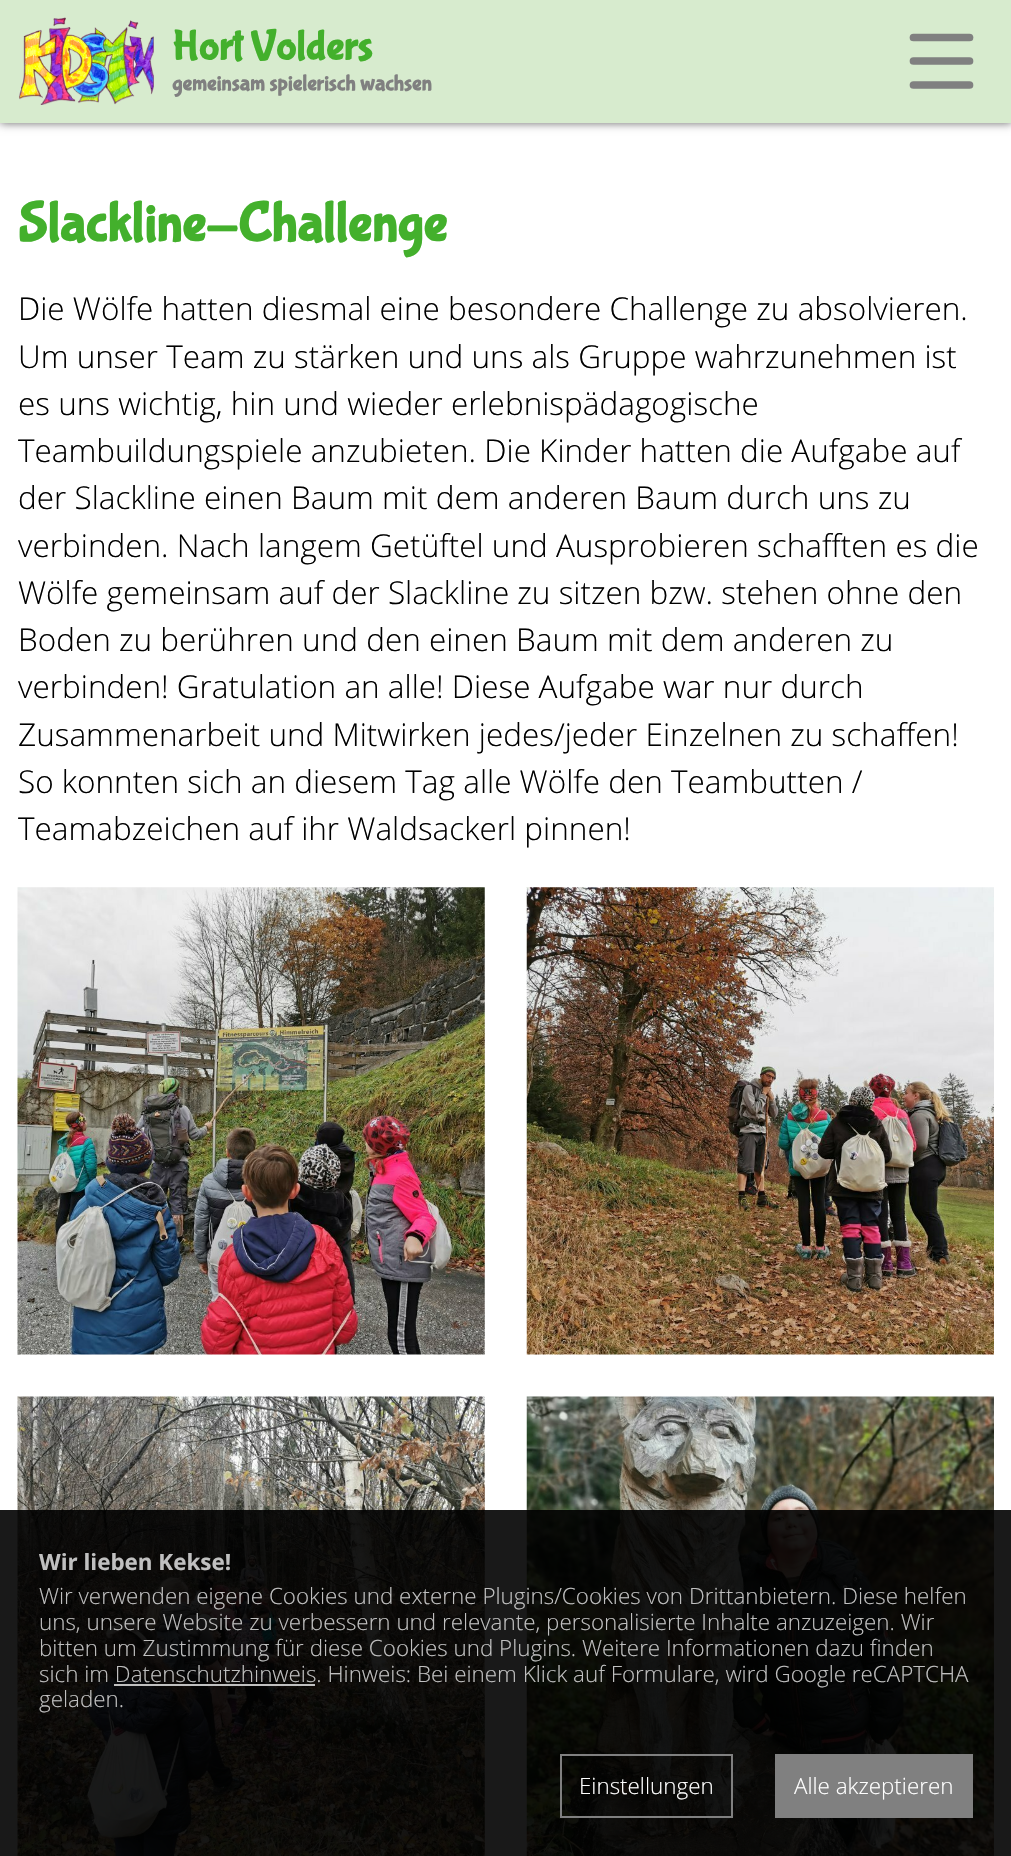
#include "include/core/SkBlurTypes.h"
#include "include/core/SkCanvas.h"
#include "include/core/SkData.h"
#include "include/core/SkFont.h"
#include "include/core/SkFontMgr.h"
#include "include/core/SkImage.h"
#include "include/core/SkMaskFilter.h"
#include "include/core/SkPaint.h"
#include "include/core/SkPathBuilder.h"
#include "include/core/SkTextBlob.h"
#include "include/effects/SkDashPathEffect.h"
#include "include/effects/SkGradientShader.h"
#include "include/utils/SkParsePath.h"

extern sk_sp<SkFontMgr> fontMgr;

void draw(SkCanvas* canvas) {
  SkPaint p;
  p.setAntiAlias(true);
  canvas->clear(SK_ColorWHITE);
  canvas->save();
  canvas->clipPath(SkPathBuilder(SkPathFillType::kEvenOdd).moveTo(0, 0).lineTo(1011, 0).lineTo(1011, 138).lineTo(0, 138).close().moveTo(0, 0).lineTo(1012, 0).lineTo(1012, 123).lineTo(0, 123).close().detach(), true);
  p.setColor(SkColorSetRGB(102, 102, 102));
  p.setMaskFilter(SkMaskFilter::MakeBlur(kNormal_SkBlurStyle, 4.5f));
  canvas->drawRect(SkRect::MakeLTRB(0, 0, 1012, 123), p);
  p.setMaskFilter(nullptr);
  canvas->restore();
  p.setColor(SkColorSetARGB(242, 213, 234, 203));
  canvas->drawRect(SkRect::MakeLTRB(0, 0, 1011, 123), p);
  canvas->drawImageRect(SkImages::DeferredFromEncodedData(SkData::MakeFromFileName("images/1.png")), SkRect::MakeLTRB(18, 17, 154, 105), SkSamplingOptions());
  p.setStyle(SkPaint::kStroke_Style);
  p.setStrokeWidth(7.7f);
  p.setStrokeCap(SkPaint::kRound_Cap);
  p.setColor(SkColorSetRGB(128, 128, 128));
  canvas->drawPath(SkPathBuilder().moveTo(913.5f, 37.5f).lineTo(969.5f, 37.5f).detach(), p);
  canvas->drawPath(SkPathBuilder().moveTo(913.5f, 61).lineTo(969.5f, 61).detach(), p);
  canvas->drawPath(SkPathBuilder().moveTo(913.5f, 85).lineTo(969.5f, 85).detach(), p);
  canvas->drawImageRect(SkImages::DeferredFromEncodedData(SkData::MakeFromFileName("images/2.png")), SkRect::MakeLTRB(17, 887, 485, 1355), SkSamplingOptions());
  canvas->drawImageRect(SkImages::DeferredFromEncodedData(SkData::MakeFromFileName("images/3.png")), SkRect::MakeLTRB(526, 887, 994, 1355), SkSamplingOptions());
  canvas->drawImageRect(SkImages::DeferredFromEncodedData(SkData::MakeFromFileName("images/4.png")), SkRect::MakeLTRB(17, 1396, 485, 1856), SkSamplingOptions());
  canvas->drawImageRect(SkImages::DeferredFromEncodedData(SkData::MakeFromFileName("images/5.png")), SkRect::MakeLTRB(526, 1396, 994, 1856), SkSamplingOptions());
  p.setStyle(SkPaint::kFill_Style);
  p.setColor(SkColorSetARGB(230, 0, 0, 0));
  canvas->drawRect(SkRect::MakeLTRB(0, 1510, 1011, 1856), p);
  p.setColor(SkColorSetRGB(192, 192, 192));
  canvas->drawRect(SkRect::MakeLTRB(114, 1684, 315, 1686), p);
  p.setStyle(SkPaint::kStroke_Style);
  p.setStrokeWidth(2);
  p.setStrokeCap(SkPaint::kButt_Cap);
  p.setColor(SkColorSetRGB(128, 128, 128));
  canvas->drawRect(SkRect::MakeLTRB(561, 1755, 732, 1817), p);
  p.setStyle(SkPaint::kFill_Style);
  canvas->drawRect(SkRect::MakeLTRB(775, 1754, 973, 1818), p);
  SkFont font1(fontMgr->matchFamilyStyle("Bubblegum Sans", SkFontStyle::Bold()), 42);
  font1.setSubpixel(true);
  p.setColor(SkColorSetRGB(67, 176, 44));
  canvas->drawString("Hort Volders", 172, 59, font1, p);
  SkFont font2(fontMgr->matchFamilyStyle("Bubblegum Sans", SkFontStyle::Bold()), 22.4f);
  font2.setSubpixel(true);
  p.setColor(SkColorSetRGB(128, 128, 128));
  canvas->drawString("gemeinsam spielerisch wachsen", 172, 90, font2, p);
  SkFont font3(fontMgr->matchFamilyStyle("Bubblegum Sans", SkFontStyle::Bold()), 56);
  font3.setSubpixel(true);
  p.setColor(SkColorSetRGB(67, 176, 44));
  canvas->drawString("Slackline-Challenge", 18, 240, font3, p);
  SkFont font4(fontMgr->matchFamilyStyle("Open Sans", SkFontStyle(300, SkFontStyle::kNormal_Width, SkFontStyle::kUpright_Slant)), 31.5f);
  font4.setSubpixel(true);
  p.setColor(SK_ColorBLACK);
  canvas->drawString("Die Wölfe hatten diesmal eine besondere Challenge zu absolvieren.", 18, 320, font4, p);
  canvas->drawString("Um unser Team zu stärken und uns als Gruppe wahrzunehmen ist", 18, 368, font4, p);
  canvas->drawString("es uns wichtig, hin und wieder erlebnispädagogische", 18, 415, font4, p);
  canvas->drawString("Teambuildungspiele anzubieten. Die Kinder hatten die Aufgabe auf", 18, 462, font4, p);
  canvas->drawString("der Slackline einen Baum mit dem anderen Baum durch uns zu", 18, 509, font4, p);
  canvas->drawString("verbinden. Nach langem Getüftel und Ausprobieren schafften es die", 18, 557, font4, p);
  canvas->drawString("Wölfe gemeinsam auf der Slackline zu sitzen bzw. stehen ohne den", 18, 604, font4, p);
  canvas->drawString("Boden zu berühren und den einen Baum mit dem anderen zu", 18, 651, font4, p);
  canvas->drawString("verbinden! Gratulation an alle! Diese Aufgabe war nur durch", 18, 698, font4, p);
  canvas->drawString("Zusammenarbeit und Mitwirken jedes/jeder Einzelnen zu schaffen!", 18, 746, font4, p);
  canvas->drawString("So konnten sich an diesem Tag alle Wölfe den Teambutten /", 18, 793, font4, p);
  canvas->drawString("Teamabzeichen auf ihr Waldsackerl pinnen!", 18, 840, font4, p);
  SkFont font5(fontMgr->matchFamilyStyle("Open Sans", SkFontStyle::Bold()), 22.4f);
  font5.setSubpixel(true);
  p.setColor(SkColorSetRGB(192, 192, 192));
  canvas->drawString("Wir lieben Kekse!", 39, 1570, font5, p);
  SkFont font6(fontMgr->matchFamilyStyle("Open Sans", SkFontStyle(300, SkFontStyle::kNormal_Width, SkFontStyle::kUpright_Slant)), 22.4f);
  font6.setSubpixel(true);
  canvas->drawString("Wir verwenden eigene Cookies und externe Plugins/Cookies von Drittanbietern. Diese helfen", 39, 1604, font6, p);
  canvas->drawString("uns, unsere Website zu verbessern und relevante, personalisierte Inhalte anzuzeigen. Wir", 39, 1630, font6, p);
  canvas->drawString("bitten um Zustimmung für diese Cookies und Plugins. Weitere Informationen dazu finden", 39, 1656, font6, p);
  canvas->drawString("sich im Datenschutzhinweis. Hinweis: Bei einem Klick auf Formulare, wird Google reCAPTCHA", 39, 1682, font6, p);
  canvas->drawString("geladen.", 39, 1707, font6, p);
  p.setColor(SK_ColorWHITE);
  canvas->drawString("Einstellungen", 579, 1794, font6, p);
  canvas->drawString("Alle akzeptieren", 794, 1794, font6, p);
}
